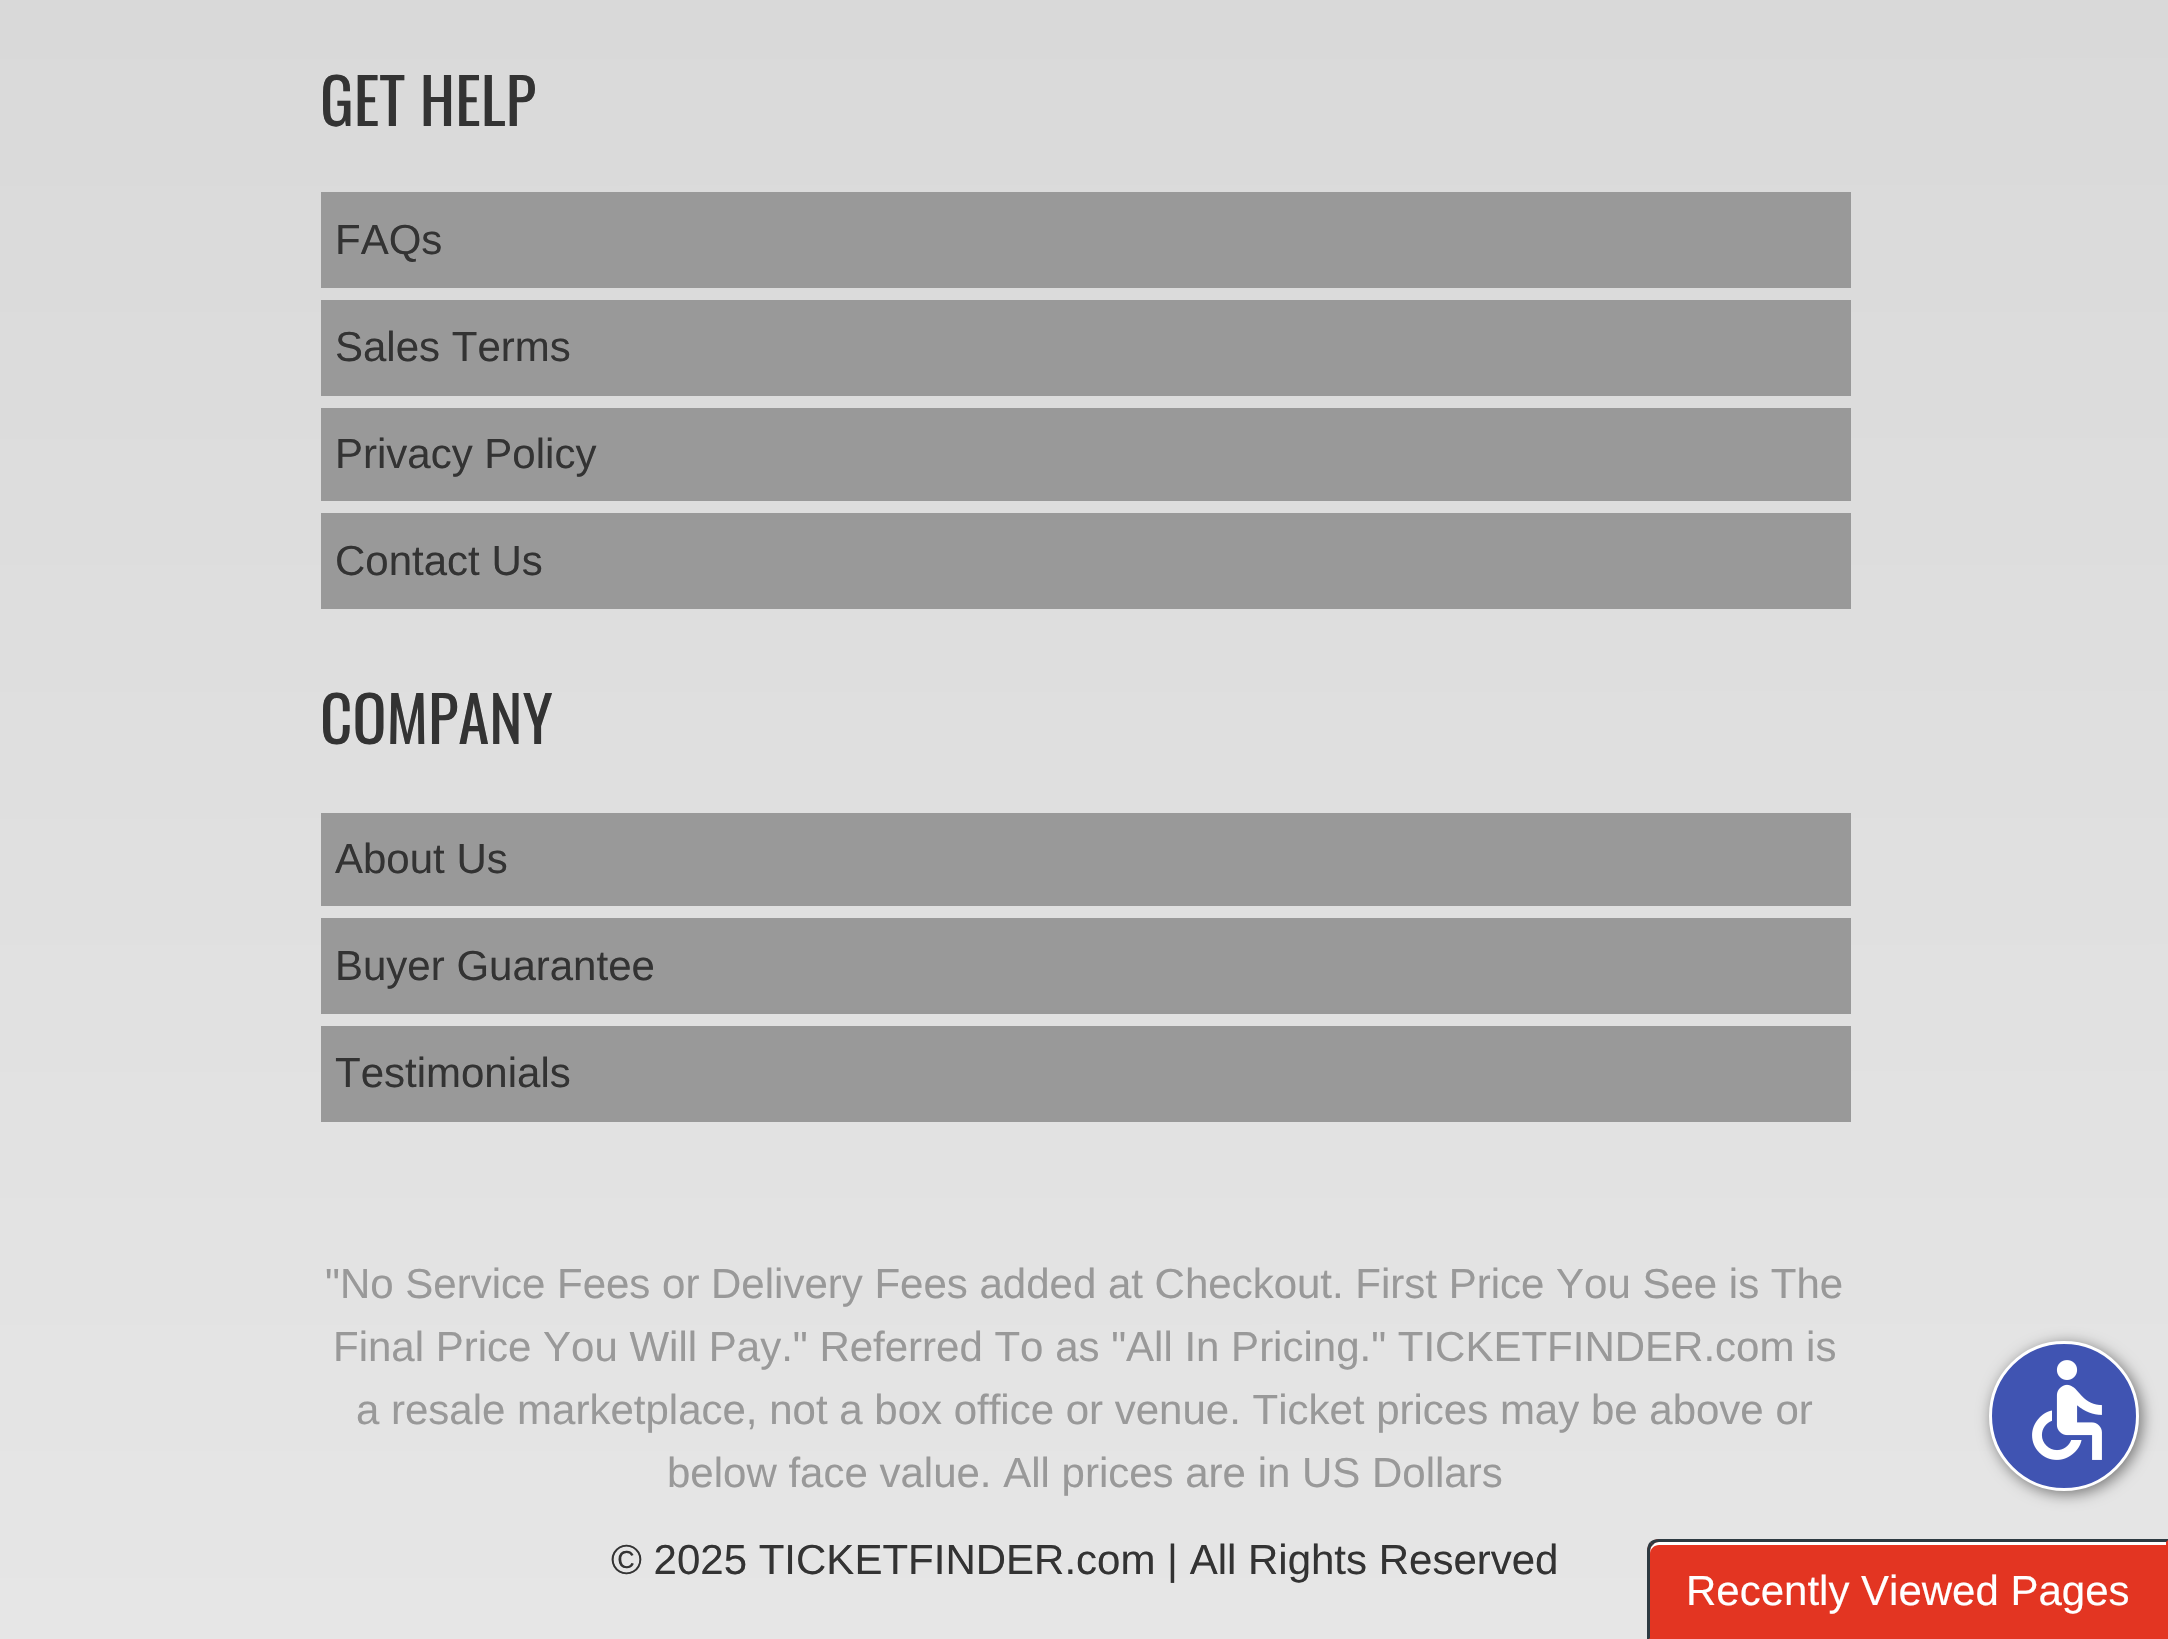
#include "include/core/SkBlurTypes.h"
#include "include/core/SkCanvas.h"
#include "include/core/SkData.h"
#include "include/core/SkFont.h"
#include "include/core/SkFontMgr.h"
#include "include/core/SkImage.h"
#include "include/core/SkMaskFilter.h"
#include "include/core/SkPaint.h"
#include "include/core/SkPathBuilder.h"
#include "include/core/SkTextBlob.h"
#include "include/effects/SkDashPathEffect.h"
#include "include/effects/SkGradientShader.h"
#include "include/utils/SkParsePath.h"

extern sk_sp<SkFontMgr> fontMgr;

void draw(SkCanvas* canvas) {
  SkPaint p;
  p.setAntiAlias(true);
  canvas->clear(SK_ColorWHITE);
  {
    const SkColor colors[] = {SkColorSetRGB(204, 204, 204), SkColorSetRGB(230, 230, 230)};
    const float stops[] = {0, 1};
    const SkPoint ends[] = {{1084, -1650}, {1085, 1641}};
    p.setShader(SkGradientShader::MakeLinear(ends, colors, stops, 2, SkTileMode::kClamp));
    p.setAlpha(255);
  }
  canvas->drawRect(SkRect::MakeLTRB(0, 0, 2168, 1639), p);
  p.setShader(nullptr);
  p.setColor(SkColorSetRGB(153, 153, 153));
  canvas->drawRect(SkRect::MakeLTRB(321, 192, 1851, 288), p);
  canvas->drawRect(SkRect::MakeLTRB(321, 300, 1851, 396), p);
  canvas->drawRect(SkRect::MakeLTRB(321, 408, 1851, 501), p);
  canvas->drawRect(SkRect::MakeLTRB(321, 513, 1851, 609), p);
  canvas->drawRect(SkRect::MakeLTRB(321, 813, 1851, 906), p);
  canvas->drawRect(SkRect::MakeLTRB(321, 918, 1851, 1014), p);
  canvas->drawRect(SkRect::MakeLTRB(321, 1026, 1851, 1122), p);
  p.setColor(SkColorSetRGB(227, 53, 34));
  canvas->drawPath(SkPathBuilder().moveTo(1659, 1539).lineTo(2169, 1539).lineTo(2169, 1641).lineTo(1647, 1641).lineTo(1647, 1551).cubicTo(1647, 1544.5f, 1652.5f, 1539, 1659, 1539).close().detach(), p);
  p.setColor(SK_ColorWHITE);
  canvas->drawPath(SkPathBuilder().moveTo(1659, 1545).lineTo(2166, 1545).lineTo(2166, 1542).lineTo(1659, 1542).cubicTo(1652, 1542, 1650, 1548, 1650, 1554).cubicTo(1650, 1549, 1654, 1545, 1659, 1545).close().detach(), p);
  p.setColor(SkColorSetRGB(45, 58, 66));
  canvas->drawPath(SkPathBuilder().moveTo(1659, 1539).cubicTo(1656, 1539, 1652, 1540, 1650, 1542).lineTo(1653, 1545).cubicTo(1654, 1543, 1656, 1542, 1659, 1542).lineTo(2166, 1542).lineTo(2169, 1539).close().detach(), p);
  canvas->drawPath(SkPathBuilder().moveTo(1647, 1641).lineTo(1650, 1638).lineTo(1650, 1551).cubicTo(1650, 1548, 1651, 1546, 1653, 1545).lineTo(1650, 1542).cubicTo(1648, 1544, 1647, 1548, 1647, 1551).close().detach(), p);
  p.setColor(SkColorSetARGB(128, 0, 0, 0));
  p.setMaskFilter(SkMaskFilter::MakeBlur(kNormal_SkBlurStyle, 7.5f));
  canvas->drawRoundRect(SkRect::MakeLTRB(1992, 1344, 2142, 1494), 75, 75, p);
  p.setMaskFilter(nullptr);
  p.setColor(SkColorSetRGB(64, 84, 178));
  canvas->drawCircle(2064, 1416, 73.5f, p);
  p.setStyle(SkPaint::kStroke_Style);
  p.setStrokeWidth(3);
  p.setColor(SK_ColorWHITE);
  canvas->drawCircle(2064, 1416, 73.5f, p);
  canvas->drawImageRect(SkImages::DeferredFromEncodedData(SkData::MakeFromFileName("images/1.png")), SkRect::MakeLTRB(2032, 1360, 2102, 1460), SkSamplingOptions());
  SkFont font1(fontMgr->matchFamilyStyle("Oswald", SkFontStyle::Normal()), 63);
  font1.setSubpixel(true);
  p.setStyle(SkPaint::kFill_Style);
  p.setColor(SkColorSetRGB(51, 51, 51));
  canvas->drawString("GET HELP", 320, 126, font1, p);
  SkFont font2(fontMgr->matchFamilyStyle("Liberation Sans", SkFontStyle::Normal()), 42);
  font2.setSubpixel(true);
  canvas->drawString("FAQs", 335, 254, font2, p);
  canvas->drawString("Sales Terms", 335, 361, font2, p);
  canvas->drawString("Privacy Policy", 335, 468, font2, p);
  canvas->drawString("Contact Us", 335, 575, font2, p);
  canvas->drawString("COMPANY", 320, 744, font1, p);
  canvas->drawString("About Us", 335, 873, font2, p);
  canvas->drawString("Buyer Guarantee", 335, 980, font2, p);
  canvas->drawString("Testimonials", 335, 1087, font2, p);
  p.setColor(SkColorSetRGB(153, 153, 153));
  canvas->drawString("\"No Service Fees or Delivery Fees added at Checkout. First Price You See is The", 325, 1298, font2, p);
  canvas->drawString("Final Price You Will Pay.\" Referred To as \"All In Pricing.\" TICKETFINDER.com is", 333, 1361, font2, p);
  canvas->drawString("a resale marketplace, not a box office or venue. Ticket prices may be above or", 356, 1424, font2, p);
  canvas->drawString("below face value. All prices are in US Dollars", 667, 1487, font2, p);
  p.setColor(SkColorSetRGB(51, 51, 51));
  canvas->drawString("© 2025 TICKETFINDER.com | All Rights Reserved", 611, 1574, font2, p);
  p.setColor(SK_ColorWHITE);
  canvas->drawString("Recently Viewed Pages", 1686, 1605, font2, p);
}
